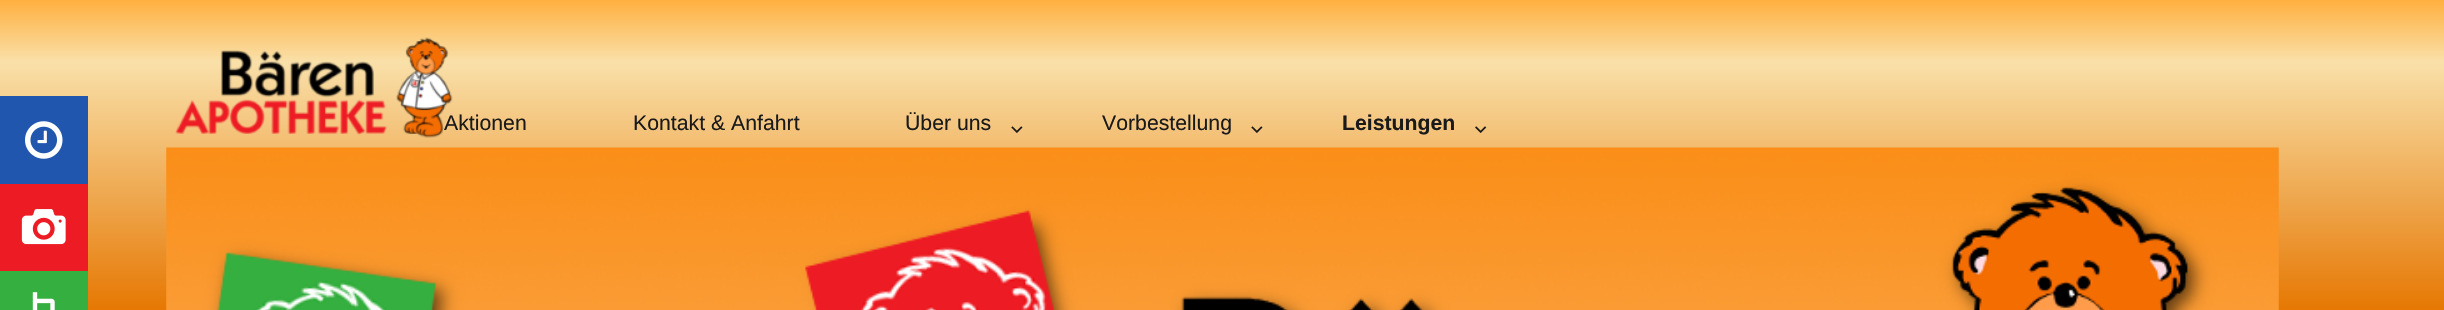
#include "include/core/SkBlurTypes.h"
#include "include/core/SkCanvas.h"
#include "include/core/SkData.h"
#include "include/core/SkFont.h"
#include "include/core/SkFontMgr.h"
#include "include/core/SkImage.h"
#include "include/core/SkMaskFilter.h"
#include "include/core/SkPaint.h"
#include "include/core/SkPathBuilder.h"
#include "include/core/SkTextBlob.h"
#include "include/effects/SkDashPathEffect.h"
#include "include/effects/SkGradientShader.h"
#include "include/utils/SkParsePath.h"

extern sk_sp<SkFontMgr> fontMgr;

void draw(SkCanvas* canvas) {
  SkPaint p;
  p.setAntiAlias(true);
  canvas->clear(SK_ColorWHITE);
  {
    const SkColor colors[] = {SkColorSetRGB(255, 176, 63), SkColorSetRGB(249, 224, 169), SkColorSetRGB(230, 120, 3)};
    const float stops[] = {0, 0.2f, 1};
    const SkPoint ends[] = {{1223, 0}, {1223, 310}};
    p.setShader(SkGradientShader::MakeLinear(ends, colors, stops, 3, SkTileMode::kClamp));
    p.setAlpha(255);
  }
  canvas->drawRect(SkRect::MakeLTRB(0, 0, 2444, 310), p);
  p.setShader(nullptr);
  p.setColor(SkColorSetRGB(32, 86, 174));
  canvas->drawRect(SkRect::MakeLTRB(0, 96, 88, 184), p);
  canvas->drawImageRect(SkImages::DeferredFromEncodedData(SkData::MakeFromFileName("images/1.png")), SkRect::MakeLTRB(25, 121, 63, 159), SkSamplingOptions());
  p.setColor(SkColorSetRGB(237, 28, 36));
  canvas->drawRect(SkRect::MakeLTRB(0, 184, 88, 271), p);
  canvas->drawImageRect(SkImages::DeferredFromEncodedData(SkData::MakeFromFileName("images/2.png")), SkRect::MakeLTRB(21, 209, 66, 245), SkSamplingOptions());
  p.setColor(SkColorSetRGB(53, 175, 63));
  canvas->drawRect(SkRect::MakeLTRB(0, 271, 88, 310), p);
  canvas->drawImageRect(SkImages::DeferredFromEncodedData(SkData::MakeFromFileName("images/3.png")), SkRect::MakeLTRB(32, 292, 55, 310), SkSamplingOptions());
  canvas->drawImageRect(SkImages::DeferredFromEncodedData(SkData::MakeFromFileName("images/4.png")), SkRect::MakeLTRB(175, 37, 453, 138), SkSamplingOptions());
  canvas->drawImageRect(SkImages::DeferredFromEncodedData(SkData::MakeFromFileName("images/5.png")), SkRect::MakeLTRB(1011, 126, 1023, 133), SkSamplingOptions());
  canvas->drawImageRect(SkImages::DeferredFromEncodedData(SkData::MakeFromFileName("images/5.png")), SkRect::MakeLTRB(1251, 126, 1263, 133), SkSamplingOptions());
  canvas->drawImageRect(SkImages::DeferredFromEncodedData(SkData::MakeFromFileName("images/6.png")), SkRect::MakeLTRB(1475, 126, 1487, 133), SkSamplingOptions());
  canvas->drawImageRect(SkImages::DeferredFromEncodedData(SkData::MakeFromFileName("images/7.png")), SkRect::MakeLTRB(166, 147, 2279, 310), SkSamplingOptions());
  SkFont font1(fontMgr->matchFamilyStyle("Liberation Sans", SkFontStyle::Normal()), 21.25f);
  font1.setSubpixel(true);
  p.setColor(SkColorSetRGB(26, 26, 26));
  canvas->drawString("Aktionen", 444, 130, font1, p);
  canvas->drawString("Kontakt & Anfahrt", 633, 130, font1, p);
  canvas->drawString("Über uns", 905, 130, font1, p);
  canvas->drawString("Vorbestellung", 1102, 130, font1, p);
  SkFont font2(fontMgr->matchFamilyStyle("Liberation Sans", SkFontStyle::Bold()), 21.25f);
  font2.setSubpixel(true);
  canvas->drawString("Leistungen", 1342, 130, font2, p);
}
